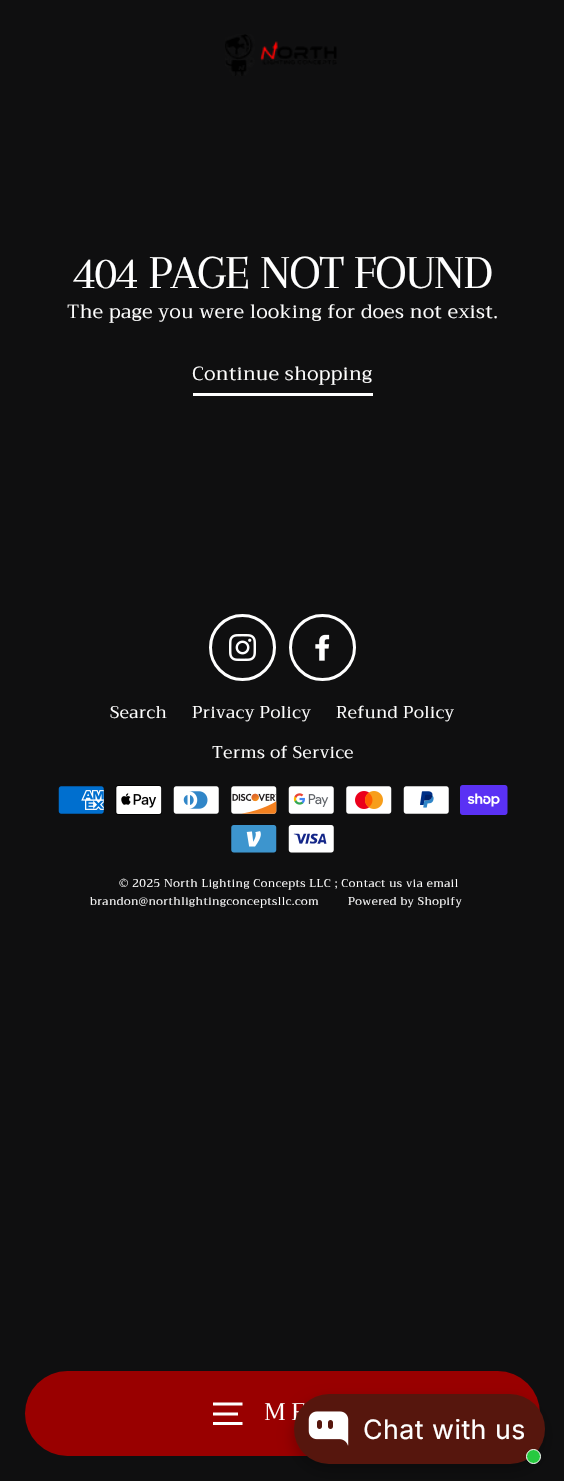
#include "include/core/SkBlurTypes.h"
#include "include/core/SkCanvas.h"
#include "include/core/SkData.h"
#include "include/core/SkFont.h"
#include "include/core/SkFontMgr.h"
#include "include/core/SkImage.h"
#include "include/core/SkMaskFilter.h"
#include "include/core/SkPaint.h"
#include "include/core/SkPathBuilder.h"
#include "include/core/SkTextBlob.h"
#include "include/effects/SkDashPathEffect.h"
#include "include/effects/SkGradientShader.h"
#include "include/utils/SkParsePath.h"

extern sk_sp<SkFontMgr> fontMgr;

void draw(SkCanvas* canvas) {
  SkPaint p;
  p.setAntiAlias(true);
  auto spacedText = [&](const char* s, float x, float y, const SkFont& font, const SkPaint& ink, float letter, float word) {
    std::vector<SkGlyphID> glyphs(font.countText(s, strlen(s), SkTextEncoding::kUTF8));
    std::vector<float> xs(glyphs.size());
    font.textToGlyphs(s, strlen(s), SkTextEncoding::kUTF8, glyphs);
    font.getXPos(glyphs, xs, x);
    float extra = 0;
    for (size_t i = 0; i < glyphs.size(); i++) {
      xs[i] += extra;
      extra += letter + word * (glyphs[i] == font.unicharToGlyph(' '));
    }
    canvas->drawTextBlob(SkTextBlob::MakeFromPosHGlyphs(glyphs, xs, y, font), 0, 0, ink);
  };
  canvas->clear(SkColorSetRGB(15, 15, 16));
  p.setColor(SK_ColorWHITE);
  canvas->drawRect(SkRect::MakeLTRB(193, 393, 373, 396), p);
  p.setStyle(SkPaint::kStroke_Style);
  p.setStrokeWidth(3);
  canvas->drawCircle(242.5f, 647.5f, 32, p);
  canvas->drawImageRect(SkImages::DeferredFromEncodedData(SkData::MakeFromFileName("images/1.png")), SkRect::MakeLTRB(229, 634, 256, 661), SkSamplingOptions());
  canvas->drawCircle(322.5f, 647.5f, 32, p);
  canvas->drawImageRect(SkImages::DeferredFromEncodedData(SkData::MakeFromFileName("images/2.png")), SkRect::MakeLTRB(315, 634, 330, 661), SkSamplingOptions());
  canvas->drawImageRect(SkImages::DeferredFromEncodedData(SkData::MakeFromFileName("images/3.png")), SkRect::MakeLTRB(58, 786, 104, 814), SkSamplingOptions());
  canvas->drawImageRect(SkImages::DeferredFromEncodedData(SkData::MakeFromFileName("images/4.png")), SkRect::MakeLTRB(115, 785, 162, 815), SkSamplingOptions());
  canvas->drawImageRect(SkImages::DeferredFromEncodedData(SkData::MakeFromFileName("images/5.png")), SkRect::MakeLTRB(173, 786, 219, 814), SkSamplingOptions());
  canvas->drawImageRect(SkImages::DeferredFromEncodedData(SkData::MakeFromFileName("images/6.png")), SkRect::MakeLTRB(231, 786, 277, 814), SkSamplingOptions());
  canvas->drawImageRect(SkImages::DeferredFromEncodedData(SkData::MakeFromFileName("images/7.png")), SkRect::MakeLTRB(288, 786, 334, 814), SkSamplingOptions());
  canvas->drawImageRect(SkImages::DeferredFromEncodedData(SkData::MakeFromFileName("images/8.png")), SkRect::MakeLTRB(346, 786, 392, 814), SkSamplingOptions());
  canvas->drawImageRect(SkImages::DeferredFromEncodedData(SkData::MakeFromFileName("images/9.png")), SkRect::MakeLTRB(403, 786, 449, 814), SkSamplingOptions());
  canvas->drawImageRect(SkImages::DeferredFromEncodedData(SkData::MakeFromFileName("images/10.png")), SkRect::MakeLTRB(460, 785, 508, 815), SkSamplingOptions());
  canvas->drawImageRect(SkImages::DeferredFromEncodedData(SkData::MakeFromFileName("images/11.png")), SkRect::MakeLTRB(231, 825, 277, 853), SkSamplingOptions());
  canvas->drawImageRect(SkImages::DeferredFromEncodedData(SkData::MakeFromFileName("images/12.png")), SkRect::MakeLTRB(288, 825, 334, 853), SkSamplingOptions());
  canvas->drawImageRect(SkImages::DeferredFromEncodedData(SkData::MakeFromFileName("images/13.png")), SkRect::MakeLTRB(225, 34, 337, 76), SkSamplingOptions());
  p.setStyle(SkPaint::kFill_Style);
  p.setColor(SkColorSetRGB(153, 0, 0));
  canvas->drawRoundRect(SkRect::MakeLTRB(25, 1371, 540, 1456), 42.5f, 42.5f, p);
  p.setStyle(SkPaint::kStroke_Style);
  p.setStrokeWidth(2.9f);
  p.setColor(SK_ColorWHITE);
  canvas->drawPath(SkPathBuilder().moveTo(213, 1404).lineTo(242.5f, 1404).moveTo(213, 1414).lineTo(238, 1414).moveTo(213, 1423.5f).lineTo(242.5f, 1423.5f).detach(), p);
  p.setStyle(SkPaint::kFill_Style);
  p.setColor(SkColorSetARGB(64, 0, 0, 0));
  p.setMaskFilter(SkMaskFilter::MakeBlur(kNormal_SkBlurStyle, 7.5f));
  canvas->drawRoundRect(SkRect::MakeLTRB(294, 1401, 545, 1471), 35, 35, p);
  p.setMaskFilter(nullptr);
  SkFont font1(fontMgr->matchFamilyStyle("Arapey", SkFontStyle::Normal()), 48.9f);
  font1.setSubpixel(true);
  p.setColor(SK_ColorWHITE);
  spacedText("404 PAGE NOT FOUND", 73, 288, font1, p, -1.25f, 0);
  SkFont font2(fontMgr->matchFamilyStyle("Trirong", SkFontStyle::Normal()), 19.1f);
  font2.setSubpixel(true);
  spacedText("The page you were looking for does not exist.", 67, 318, font2, p, 0.48f, 0);
  spacedText("Continue shopping", 192, 380, font2, p, 0.48f, 0);
  SkFont font3(fontMgr->matchFamilyStyle("Trirong", SkFontStyle::Normal()), 17);
  font3.setSubpixel(true);
  spacedText("Search", 110, 718, font3, p, 0.48f, 0);
  spacedText("Privacy Policy", 192, 718, font3, p, 0.48f, 0);
  spacedText("Refund Policy", 336, 718, font3, p, 0.48f, 0);
  spacedText("Terms of Service", 212, 758, font3, p, 0.48f, 0);
  SkFont font4(fontMgr->matchFamilyStyle("Trirong", SkFontStyle::Normal()), 11.25f);
  font4.setSubpixel(true);
  spacedText("© 2025 North Lighting Concepts LLC ; Contact us via email", 119, 887, font4, p, 0.48f, 0);
  spacedText("brandon@northlightingconceptsllc.com", 90, 905, font4, p, 0.48f, 0);
  spacedText("Powered by Shopify", 348, 905, font4, p, 0.48f, 0);
  SkFont font5(fontMgr->matchFamilyStyle("Trirong", SkFontStyle::Normal()), 24);
  font5.setSubpixel(true);
  spacedText("ME", 264, 1420, font5, p, 5, 0);
  p.setColor(SkColorSetRGB(86, 22, 13));
  canvas->drawRoundRect(SkRect::MakeLTRB(294, 1394, 545, 1464), 35, 35, p);
  canvas->drawImageRect(SkImages::DeferredFromEncodedData(SkData::MakeFromFileName("images/14.png")), SkRect::MakeLTRB(308, 1411, 349, 1446), SkSamplingOptions());
  SkFont font6(fontMgr->matchFamilyStyle("Inter", SkFontStyle::Normal()), 26.75f);
  font6.setSubpixel(true);
  p.setColor(SK_ColorWHITE);
  spacedText("Chat with us", 363, 1439, font6, p, 0.48f, 0);
  p.setColor(SkColorSetRGB(39, 202, 64));
  canvas->drawCircle(533.5f, 1456.5f, 7, p);
  p.setStyle(SkPaint::kStroke_Style);
  p.setStrokeWidth(1);
  p.setColor(SK_ColorWHITE);
  canvas->drawCircle(533.5f, 1456.5f, 7, p);
}
